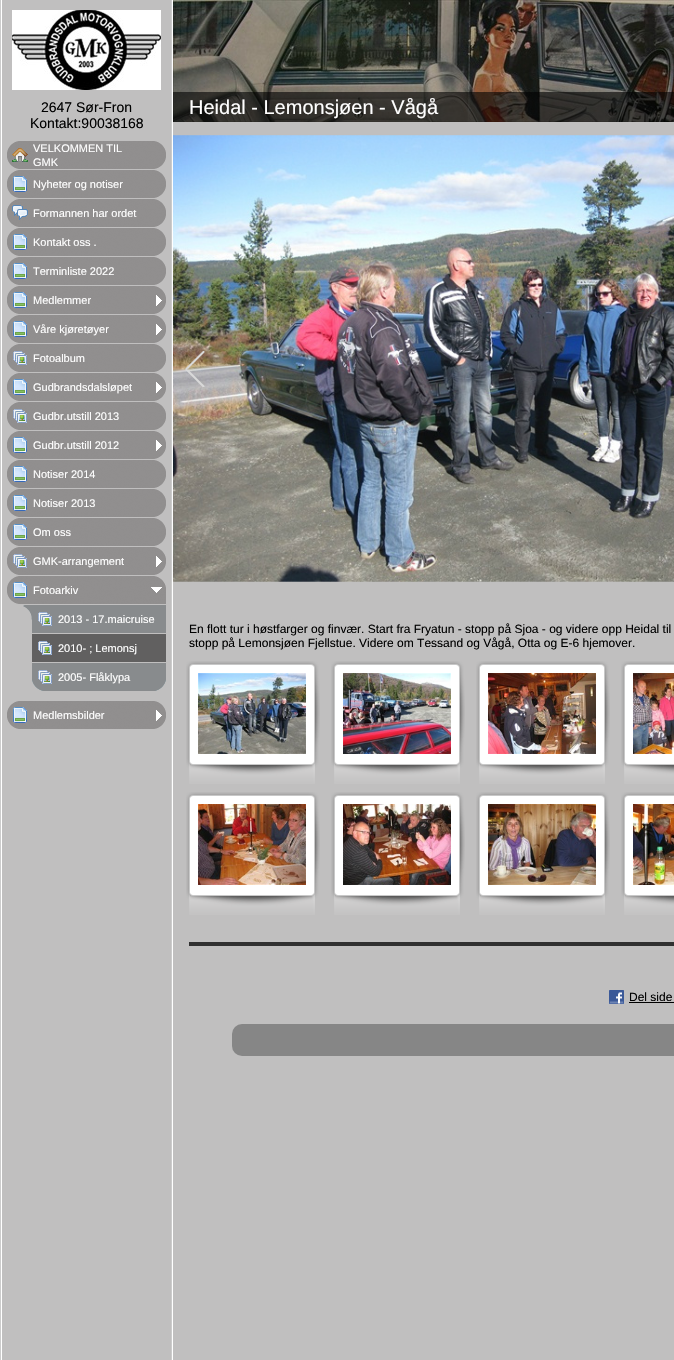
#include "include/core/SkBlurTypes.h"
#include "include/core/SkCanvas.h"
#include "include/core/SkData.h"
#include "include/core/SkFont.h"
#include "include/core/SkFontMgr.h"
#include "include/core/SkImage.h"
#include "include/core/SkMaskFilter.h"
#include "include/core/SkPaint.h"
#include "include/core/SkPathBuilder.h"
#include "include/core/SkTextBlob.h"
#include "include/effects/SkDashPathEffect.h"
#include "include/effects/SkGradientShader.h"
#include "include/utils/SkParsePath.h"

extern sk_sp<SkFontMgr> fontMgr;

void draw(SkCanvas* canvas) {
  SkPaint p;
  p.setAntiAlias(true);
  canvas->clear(SK_ColorWHITE);
  p.setColor(SkColorSetRGB(204, 204, 204));
  canvas->drawRect(SkRect::MakeLTRB(0, 0, 1, 1360), p);
  p.setColor(SkColorSetRGB(192, 191, 191));
  canvas->drawRect(SkRect::MakeLTRB(2, 0, 171, 1360), p);
  canvas->drawImageRect(SkImages::DeferredFromEncodedData(SkData::MakeFromFileName("images/1.png")), SkRect::MakeLTRB(12, 10, 161, 90), SkSamplingOptions());
  canvas->drawImageRect(SkImages::DeferredFromEncodedData(SkData::MakeFromFileName("images/2.png")), SkRect::MakeLTRB(7, 141, 166, 169), SkSamplingOptions());
  canvas->drawImageRect(SkImages::DeferredFromEncodedData(SkData::MakeFromFileName("images/3.png")), SkRect::MakeLTRB(12, 148, 28, 162), SkSamplingOptions());
  canvas->drawImageRect(SkImages::DeferredFromEncodedData(SkData::MakeFromFileName("images/2.png")), SkRect::MakeLTRB(7, 170, 166, 198), SkSamplingOptions());
  canvas->drawImageRect(SkImages::DeferredFromEncodedData(SkData::MakeFromFileName("images/4.png")), SkRect::MakeLTRB(13, 176, 27, 192), SkSamplingOptions());
  canvas->drawImageRect(SkImages::DeferredFromEncodedData(SkData::MakeFromFileName("images/2.png")), SkRect::MakeLTRB(7, 199, 166, 227), SkSamplingOptions());
  canvas->drawImageRect(SkImages::DeferredFromEncodedData(SkData::MakeFromFileName("images/5.png")), SkRect::MakeLTRB(12, 205, 28, 220), SkSamplingOptions());
  canvas->drawImageRect(SkImages::DeferredFromEncodedData(SkData::MakeFromFileName("images/2.png")), SkRect::MakeLTRB(7, 228, 166, 256), SkSamplingOptions());
  canvas->drawImageRect(SkImages::DeferredFromEncodedData(SkData::MakeFromFileName("images/4.png")), SkRect::MakeLTRB(13, 234, 27, 250), SkSamplingOptions());
  canvas->drawImageRect(SkImages::DeferredFromEncodedData(SkData::MakeFromFileName("images/2.png")), SkRect::MakeLTRB(7, 257, 166, 285), SkSamplingOptions());
  canvas->drawImageRect(SkImages::DeferredFromEncodedData(SkData::MakeFromFileName("images/4.png")), SkRect::MakeLTRB(13, 263, 27, 279), SkSamplingOptions());
  canvas->drawImageRect(SkImages::DeferredFromEncodedData(SkData::MakeFromFileName("images/2.png")), SkRect::MakeLTRB(7, 286, 166, 314), SkSamplingOptions());
  canvas->drawImageRect(SkImages::DeferredFromEncodedData(SkData::MakeFromFileName("images/4.png")), SkRect::MakeLTRB(13, 292, 27, 308), SkSamplingOptions());
  canvas->drawImageRect(SkImages::DeferredFromEncodedData(SkData::MakeFromFileName("images/6.png")), SkRect::MakeLTRB(156, 295, 162, 306), SkSamplingOptions());
  canvas->drawImageRect(SkImages::DeferredFromEncodedData(SkData::MakeFromFileName("images/2.png")), SkRect::MakeLTRB(7, 315, 166, 343), SkSamplingOptions());
  canvas->drawImageRect(SkImages::DeferredFromEncodedData(SkData::MakeFromFileName("images/4.png")), SkRect::MakeLTRB(13, 321, 27, 337), SkSamplingOptions());
  canvas->drawImageRect(SkImages::DeferredFromEncodedData(SkData::MakeFromFileName("images/6.png")), SkRect::MakeLTRB(156, 324, 162, 335), SkSamplingOptions());
  canvas->drawImageRect(SkImages::DeferredFromEncodedData(SkData::MakeFromFileName("images/2.png")), SkRect::MakeLTRB(7, 344, 166, 372), SkSamplingOptions());
  canvas->drawImageRect(SkImages::DeferredFromEncodedData(SkData::MakeFromFileName("images/7.png")), SkRect::MakeLTRB(13, 351, 27, 365), SkSamplingOptions());
  canvas->drawImageRect(SkImages::DeferredFromEncodedData(SkData::MakeFromFileName("images/2.png")), SkRect::MakeLTRB(7, 373, 166, 401), SkSamplingOptions());
  canvas->drawImageRect(SkImages::DeferredFromEncodedData(SkData::MakeFromFileName("images/4.png")), SkRect::MakeLTRB(13, 379, 27, 395), SkSamplingOptions());
  canvas->drawImageRect(SkImages::DeferredFromEncodedData(SkData::MakeFromFileName("images/6.png")), SkRect::MakeLTRB(156, 382, 162, 393), SkSamplingOptions());
  canvas->drawImageRect(SkImages::DeferredFromEncodedData(SkData::MakeFromFileName("images/2.png")), SkRect::MakeLTRB(7, 402, 166, 430), SkSamplingOptions());
  canvas->drawImageRect(SkImages::DeferredFromEncodedData(SkData::MakeFromFileName("images/7.png")), SkRect::MakeLTRB(13, 409, 27, 423), SkSamplingOptions());
  canvas->drawImageRect(SkImages::DeferredFromEncodedData(SkData::MakeFromFileName("images/2.png")), SkRect::MakeLTRB(7, 431, 166, 459), SkSamplingOptions());
  canvas->drawImageRect(SkImages::DeferredFromEncodedData(SkData::MakeFromFileName("images/4.png")), SkRect::MakeLTRB(13, 437, 27, 453), SkSamplingOptions());
  canvas->drawImageRect(SkImages::DeferredFromEncodedData(SkData::MakeFromFileName("images/6.png")), SkRect::MakeLTRB(156, 440, 162, 451), SkSamplingOptions());
  canvas->drawImageRect(SkImages::DeferredFromEncodedData(SkData::MakeFromFileName("images/2.png")), SkRect::MakeLTRB(7, 460, 166, 488), SkSamplingOptions());
  canvas->drawImageRect(SkImages::DeferredFromEncodedData(SkData::MakeFromFileName("images/4.png")), SkRect::MakeLTRB(13, 466, 27, 482), SkSamplingOptions());
  canvas->drawImageRect(SkImages::DeferredFromEncodedData(SkData::MakeFromFileName("images/2.png")), SkRect::MakeLTRB(7, 489, 166, 517), SkSamplingOptions());
  canvas->drawImageRect(SkImages::DeferredFromEncodedData(SkData::MakeFromFileName("images/4.png")), SkRect::MakeLTRB(13, 495, 27, 511), SkSamplingOptions());
  canvas->drawImageRect(SkImages::DeferredFromEncodedData(SkData::MakeFromFileName("images/2.png")), SkRect::MakeLTRB(7, 518, 166, 546), SkSamplingOptions());
  canvas->drawImageRect(SkImages::DeferredFromEncodedData(SkData::MakeFromFileName("images/4.png")), SkRect::MakeLTRB(13, 524, 27, 540), SkSamplingOptions());
  canvas->drawImageRect(SkImages::DeferredFromEncodedData(SkData::MakeFromFileName("images/2.png")), SkRect::MakeLTRB(7, 547, 166, 575), SkSamplingOptions());
  canvas->drawImageRect(SkImages::DeferredFromEncodedData(SkData::MakeFromFileName("images/7.png")), SkRect::MakeLTRB(13, 554, 27, 568), SkSamplingOptions());
  canvas->drawImageRect(SkImages::DeferredFromEncodedData(SkData::MakeFromFileName("images/6.png")), SkRect::MakeLTRB(156, 556, 162, 567), SkSamplingOptions());
  canvas->drawImageRect(SkImages::DeferredFromEncodedData(SkData::MakeFromFileName("images/8.png")), SkRect::MakeLTRB(7, 576, 166, 604), SkSamplingOptions());
  canvas->drawImageRect(SkImages::DeferredFromEncodedData(SkData::MakeFromFileName("images/9.png")), SkRect::MakeLTRB(13, 582, 27, 598), SkSamplingOptions());
  canvas->drawImageRect(SkImages::DeferredFromEncodedData(SkData::MakeFromFileName("images/10.png")), SkRect::MakeLTRB(151, 587, 162, 593), SkSamplingOptions());
  canvas->drawImageRect(SkImages::DeferredFromEncodedData(SkData::MakeFromFileName("images/11.png")), SkRect::MakeLTRB(23, 605, 166, 633), SkSamplingOptions());
  canvas->drawImageRect(SkImages::DeferredFromEncodedData(SkData::MakeFromFileName("images/12.png")), SkRect::MakeLTRB(38, 612, 52, 626), SkSamplingOptions());
  p.setColor(SkColorSetRGB(97, 96, 96));
  canvas->drawRect(SkRect::MakeLTRB(32, 634, 166, 662), p);
  canvas->drawImageRect(SkImages::DeferredFromEncodedData(SkData::MakeFromFileName("images/13.png")), SkRect::MakeLTRB(38, 641, 52, 655), SkSamplingOptions());
  canvas->drawImageRect(SkImages::DeferredFromEncodedData(SkData::MakeFromFileName("images/14.png")), SkRect::MakeLTRB(32, 663, 166, 691), SkSamplingOptions());
  canvas->drawImageRect(SkImages::DeferredFromEncodedData(SkData::MakeFromFileName("images/12.png")), SkRect::MakeLTRB(38, 670, 52, 684), SkSamplingOptions());
  canvas->drawImageRect(SkImages::DeferredFromEncodedData(SkData::MakeFromFileName("images/2.png")), SkRect::MakeLTRB(7, 701, 166, 729), SkSamplingOptions());
  canvas->drawImageRect(SkImages::DeferredFromEncodedData(SkData::MakeFromFileName("images/4.png")), SkRect::MakeLTRB(13, 707, 27, 723), SkSamplingOptions());
  canvas->drawImageRect(SkImages::DeferredFromEncodedData(SkData::MakeFromFileName("images/6.png")), SkRect::MakeLTRB(156, 710, 162, 721), SkSamplingOptions());
  p.setColor(SkColorSetRGB(204, 204, 204));
  canvas->drawRect(SkRect::MakeLTRB(171, 0, 172, 1360), p);
  p.setColor(SkColorSetRGB(192, 191, 191));
  canvas->drawRect(SkRect::MakeLTRB(173, 122, 674, 1360), p);
  canvas->drawImageRect(SkImages::DeferredFromEncodedData(SkData::MakeFromFileName("images/15.png")), SkRect::MakeLTRB(173, 0, 674, 122), SkSamplingOptions());
  p.setColor(SkColorSetARGB(153, 0, 0, 0));
  canvas->drawRect(SkRect::MakeLTRB(173, 92, 674, 122), p);
  canvas->drawImageRect(SkImages::DeferredFromEncodedData(SkData::MakeFromFileName("images/16.png")), SkRect::MakeLTRB(173, 135, 674, 582), SkSamplingOptions());
  canvas->drawImageRect(SkImages::DeferredFromEncodedData(SkData::MakeFromFileName("images/17.png")), SkRect::MakeLTRB(185, 351, 205, 387), SkSamplingOptions());
  canvas->drawImageRect(SkImages::DeferredFromEncodedData(SkData::MakeFromFileName("images/18.png")), SkRect::MakeLTRB(186, 661, 320, 784), SkSamplingOptions());
  canvas->drawImageRect(SkImages::DeferredFromEncodedData(SkData::MakeFromFileName("images/19.png")), SkRect::MakeLTRB(198, 673, 306, 754), SkSamplingOptions());
  canvas->drawImageRect(SkImages::DeferredFromEncodedData(SkData::MakeFromFileName("images/18.png")), SkRect::MakeLTRB(331, 661, 465, 784), SkSamplingOptions());
  canvas->drawImageRect(SkImages::DeferredFromEncodedData(SkData::MakeFromFileName("images/20.png")), SkRect::MakeLTRB(343, 673, 451, 754), SkSamplingOptions());
  canvas->drawImageRect(SkImages::DeferredFromEncodedData(SkData::MakeFromFileName("images/18.png")), SkRect::MakeLTRB(476, 661, 610, 784), SkSamplingOptions());
  canvas->drawImageRect(SkImages::DeferredFromEncodedData(SkData::MakeFromFileName("images/21.png")), SkRect::MakeLTRB(488, 673, 596, 754), SkSamplingOptions());
  canvas->drawImageRect(SkImages::DeferredFromEncodedData(SkData::MakeFromFileName("images/22.png")), SkRect::MakeLTRB(621, 661, 674, 784), SkSamplingOptions());
  canvas->drawImageRect(SkImages::DeferredFromEncodedData(SkData::MakeFromFileName("images/23.png")), SkRect::MakeLTRB(633, 673, 674, 754), SkSamplingOptions());
  canvas->drawImageRect(SkImages::DeferredFromEncodedData(SkData::MakeFromFileName("images/18.png")), SkRect::MakeLTRB(186, 792, 320, 915), SkSamplingOptions());
  canvas->drawImageRect(SkImages::DeferredFromEncodedData(SkData::MakeFromFileName("images/24.png")), SkRect::MakeLTRB(198, 804, 306, 885), SkSamplingOptions());
  canvas->drawImageRect(SkImages::DeferredFromEncodedData(SkData::MakeFromFileName("images/18.png")), SkRect::MakeLTRB(331, 792, 465, 915), SkSamplingOptions());
  canvas->drawImageRect(SkImages::DeferredFromEncodedData(SkData::MakeFromFileName("images/25.png")), SkRect::MakeLTRB(343, 804, 451, 885), SkSamplingOptions());
  canvas->drawImageRect(SkImages::DeferredFromEncodedData(SkData::MakeFromFileName("images/18.png")), SkRect::MakeLTRB(476, 792, 610, 915), SkSamplingOptions());
  canvas->drawImageRect(SkImages::DeferredFromEncodedData(SkData::MakeFromFileName("images/26.png")), SkRect::MakeLTRB(488, 804, 596, 885), SkSamplingOptions());
  canvas->drawImageRect(SkImages::DeferredFromEncodedData(SkData::MakeFromFileName("images/22.png")), SkRect::MakeLTRB(621, 792, 674, 915), SkSamplingOptions());
  canvas->drawImageRect(SkImages::DeferredFromEncodedData(SkData::MakeFromFileName("images/27.png")), SkRect::MakeLTRB(633, 804, 674, 885), SkSamplingOptions());
  p.setColor(SkColorSetRGB(48, 48, 48));
  canvas->drawRect(SkRect::MakeLTRB(189, 942, 674, 946), p);
  canvas->drawImageRect(SkImages::DeferredFromEncodedData(SkData::MakeFromFileName("images/28.png")), SkRect::MakeLTRB(609, 990, 624, 1004), SkSamplingOptions());
  p.setColor(SK_ColorBLACK);
  canvas->drawRect(SkRect::MakeLTRB(629, 1002, 674, 1003), p);
  p.setColor(SkColorSetRGB(134, 134, 134));
  canvas->drawRoundRect(SkRect::MakeLTRB(232, 1024, 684, 1056), 10, 10, p);
  SkFont font1(fontMgr->matchFamilyStyle("Liberation Sans", SkFontStyle::Normal()), 14);
  font1.setSubpixel(true);
  p.setColor(SK_ColorBLACK);
  canvas->drawString("2647 Sør-Fron", 41, 112, font1, p);
  canvas->drawString("Kontakt:90038168", 30, 128, font1, p);
  SkFont font2(fontMgr->matchFamilyStyle("Liberation Sans", SkFontStyle::Normal()), 11);
  font2.setSubpixel(true);
  p.setColor(SK_ColorWHITE);
  canvas->drawString("VELKOMMEN TIL", 33, 152, font2, p);
  canvas->drawString("GMK", 33, 166, font2, p);
  canvas->drawString("Nyheter og notiser", 33, 188, font2, p);
  canvas->drawString("Formannen har ordet", 33, 217, font2, p);
  canvas->drawString("Kontakt oss .", 33, 246, font2, p);
  canvas->drawString("Terminliste 2022", 33, 275, font2, p);
  canvas->drawString("Medlemmer", 33, 304, font2, p);
  canvas->drawString("Våre kjøretøyer", 33, 333, font2, p);
  canvas->drawString("Fotoalbum", 33, 362, font2, p);
  canvas->drawString("Gudbrandsdalsløpet", 33, 391, font2, p);
  canvas->drawString("Gudbr.utstill 2013", 33, 420, font2, p);
  canvas->drawString("Gudbr.utstill 2012", 33, 449, font2, p);
  canvas->drawString("Notiser 2014", 33, 478, font2, p);
  canvas->drawString("Notiser 2013", 33, 507, font2, p);
  canvas->drawString("Om oss", 33, 536, font2, p);
  canvas->drawString("GMK-arrangement", 33, 565, font2, p);
  canvas->drawString("Fotoarkiv", 33, 594, font2, p);
  canvas->drawString("2013 - 17.maicruise", 58, 623, font2, p);
  canvas->drawString("2010- ; Lemonsj", 58, 652, font2, p);
  canvas->drawString("2005- Flåklypa", 58, 681, font2, p);
  canvas->drawString("Medlemsbilder", 33, 719, font2, p);
  SkFont font3(fontMgr->matchFamilyStyle("Liberation Sans", SkFontStyle::Normal()), 20);
  font3.setSubpixel(true);
  canvas->drawString("Heidal - Lemonsjøen - Vågå", 189, 114, font3, p);
  SkFont font4(fontMgr->matchFamilyStyle("Liberation Sans", SkFontStyle::Normal()), 12);
  font4.setSubpixel(true);
  p.setColor(SK_ColorBLACK);
  canvas->drawString("En flott tur i høstfarger og finvær. Start fra Fryatun - stopp på Sjoa - og videre opp Heidal til", 189, 633, font4, p);
  canvas->drawString("stopp på Lemonsjøen Fjellstue. Videre om Tessand og Vågå, Otta og E-6 hjemover.", 189, 647, font4, p);
  canvas->drawString("Del side", 629, 1001, font4, p);
}
